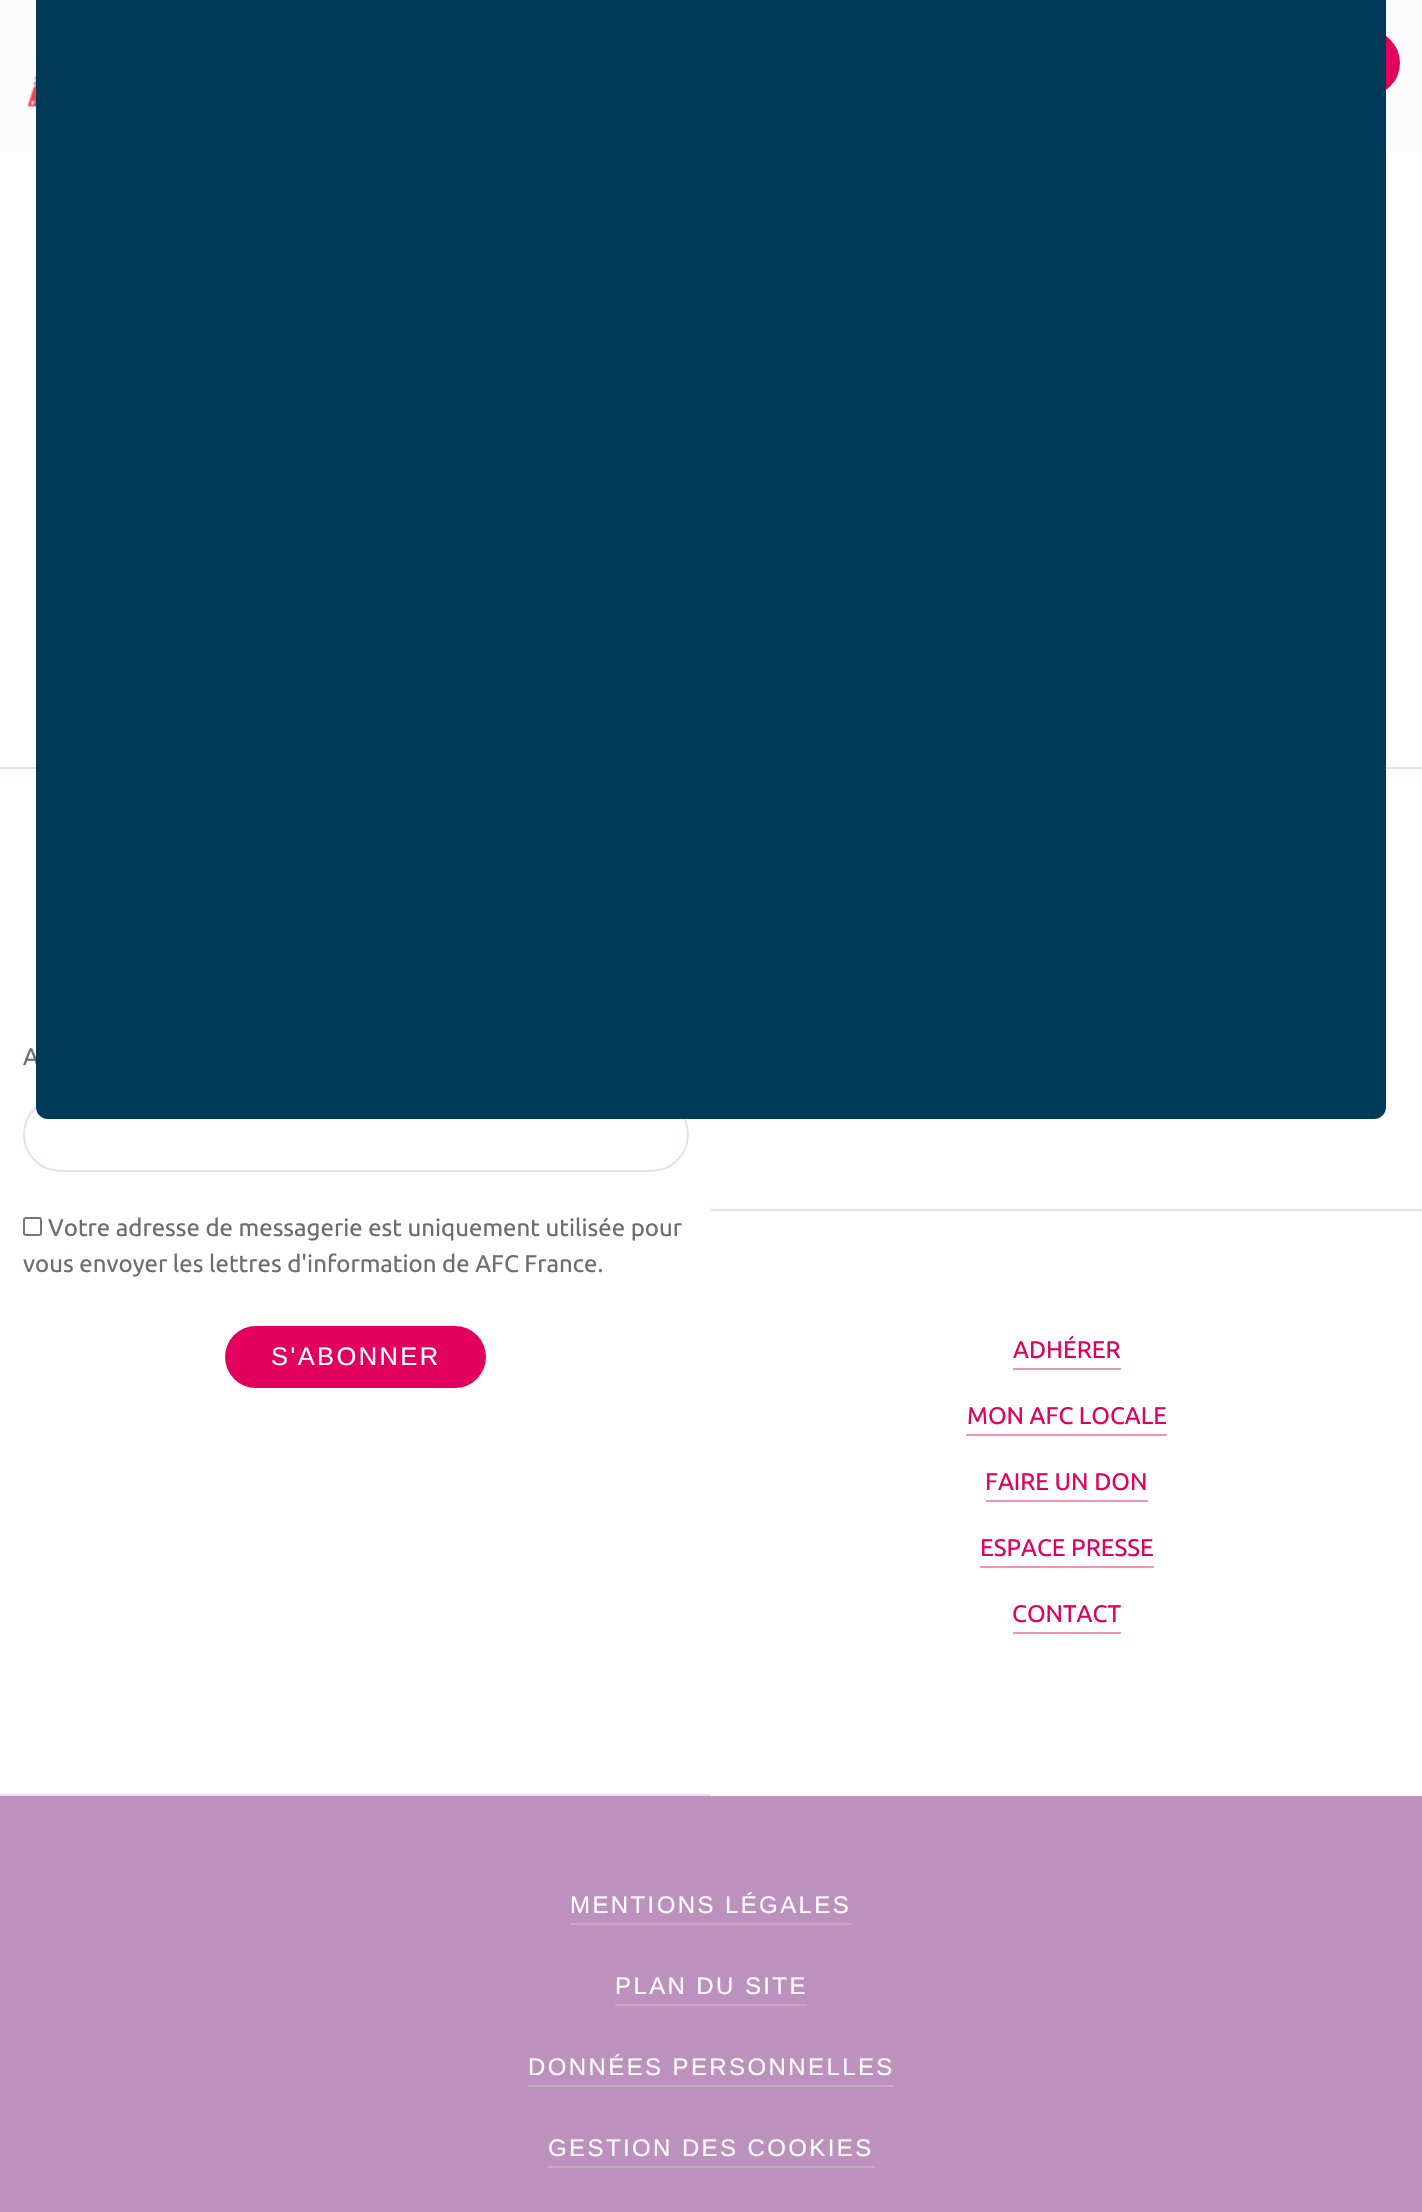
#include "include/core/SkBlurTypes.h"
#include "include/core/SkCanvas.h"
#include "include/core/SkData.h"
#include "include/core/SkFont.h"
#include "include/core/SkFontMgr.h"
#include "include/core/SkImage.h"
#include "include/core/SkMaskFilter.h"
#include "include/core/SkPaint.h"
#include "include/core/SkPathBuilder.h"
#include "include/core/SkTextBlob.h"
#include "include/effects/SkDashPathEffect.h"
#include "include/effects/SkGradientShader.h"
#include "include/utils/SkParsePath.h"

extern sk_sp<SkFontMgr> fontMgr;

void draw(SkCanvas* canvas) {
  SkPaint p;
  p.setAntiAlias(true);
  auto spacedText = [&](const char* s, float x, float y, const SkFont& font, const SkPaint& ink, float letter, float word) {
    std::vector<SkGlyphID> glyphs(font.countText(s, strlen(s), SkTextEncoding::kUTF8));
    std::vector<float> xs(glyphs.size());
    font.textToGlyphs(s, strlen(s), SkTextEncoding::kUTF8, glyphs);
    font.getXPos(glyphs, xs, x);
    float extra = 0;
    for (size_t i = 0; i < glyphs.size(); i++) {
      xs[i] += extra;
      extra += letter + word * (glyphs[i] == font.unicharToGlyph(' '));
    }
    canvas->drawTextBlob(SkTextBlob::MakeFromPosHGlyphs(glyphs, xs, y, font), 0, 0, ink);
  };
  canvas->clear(SK_ColorWHITE);
  p.setColor(SkColorSetRGB(253, 252, 253));
  canvas->drawRect(SkRect::MakeLTRB(0, 0, 1422, 152), p);
  canvas->drawImageRect(SkImages::DeferredFromEncodedData(SkData::MakeFromFileName("images/1.png")), SkRect::MakeLTRB(26, 73, 36, 108), SkSamplingOptions());
  p.setColor(SkColorSetRGB(227, 0, 93));
  canvas->drawCircle(1367, 63, 33, p);
  p.setColor(SkColorSetRGB(235, 222, 235));
  canvas->drawRect(SkRect::MakeLTRB(0, 767, 1422, 769), p);
  canvas->drawRect(SkRect::MakeLTRB(0, 1794, 711, 1796), p);
  p.setStyle(SkPaint::kStroke_Style);
  p.setStrokeWidth(2);
  canvas->drawRoundRect(SkRect::MakeLTRB(24, 1098, 688, 1171), 36.5f, 36.5f, p);
  p.setColor(SkColorSetRGB(118, 118, 118));
  canvas->drawRoundRect(SkRect::MakeLTRB(24, 1218, 41, 1235), 2, 2, p);
  p.setStyle(SkPaint::kFill_Style);
  p.setColor(SkColorSetRGB(227, 0, 93));
  canvas->drawRoundRect(SkRect::MakeLTRB(225, 1326, 486, 1388), 31, 31, p);
  p.setColor(SkColorSetRGB(235, 222, 235));
  canvas->drawRect(SkRect::MakeLTRB(711, 1209, 1422, 1211), p);
  p.setColor(SkColorSetRGB(240, 149, 175));
  canvas->drawRect(SkRect::MakeLTRB(1013, 1368, 1121, 1370), p);
  canvas->drawRect(SkRect::MakeLTRB(966, 1434, 1167, 1436), p);
  canvas->drawRect(SkRect::MakeLTRB(986, 1500, 1148, 1502), p);
  canvas->drawRect(SkRect::MakeLTRB(980, 1566, 1154, 1568), p);
  canvas->drawRect(SkRect::MakeLTRB(1013, 1632, 1121, 1634), p);
  p.setColor(SkColorSetRGB(189, 145, 189));
  canvas->drawRect(SkRect::MakeLTRB(0, 1796, 1422, 2212), p);
  p.setColor(SkColorSetRGB(202, 167, 202));
  canvas->drawRect(SkRect::MakeLTRB(570, 1923, 852, 1925), p);
  canvas->drawRect(SkRect::MakeLTRB(615, 2004, 807, 2006), p);
  canvas->drawRect(SkRect::MakeLTRB(528, 2085, 894, 2087), p);
  canvas->drawRect(SkRect::MakeLTRB(548, 2166, 875, 2168), p);
  SkFont font1(fontMgr->matchFamilyStyle("Ubuntu", SkFontStyle::Normal()), 24);
  font1.setSubpixel(true);
  p.setColor(SkColorSetRGB(102, 110, 118));
  canvas->drawString("A", 23, 1065, font1, p);
  p.setColor(SkColorSetRGB(0, 58, 88));
  canvas->drawRoundRect(SkRect::MakeLTRB(36, -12, 1386, 1119), 12, 12, p);
  p.setColor(SkColorSetRGB(102, 110, 118));
  canvas->drawString("Votre adresse de messagerie est uniquement utilisée pour", 48, 1236, font1, p);
  canvas->drawString("vous envoyer les lettres d'information de AFC France.", 23, 1272, font1, p);
  SkFont font2(fontMgr->matchFamilyStyle("Liberation Sans", SkFontStyle::Normal()), 25.5f);
  font2.setSubpixel(true);
  p.setColor(SK_ColorWHITE);
  spacedText("S'ABONNER", 271, 1365, font2, p, 2.4f, 0);
  p.setColor(SkColorSetRGB(227, 0, 93));
  canvas->drawString("ADHÉRER", 1013, 1358, font1, p);
  canvas->drawString("MON AFC LOCALE", 967, 1424, font1, p);
  canvas->drawString("FAIRE UN DON", 985, 1490, font1, p);
  canvas->drawString("ESPACE PRESSE", 980, 1556, font1, p);
  canvas->drawString("CONTACT", 1012, 1622, font1, p);
  SkFont font3(fontMgr->matchFamilyStyle("Liberation Sans", SkFontStyle::Normal()), 24);
  font3.setSubpixel(true);
  p.setColor(SK_ColorWHITE);
  spacedText("MENTIONS LÉGALES", 570, 1913, font3, p, 2.4f, 0);
  spacedText("PLAN DU SITE", 615, 1994, font3, p, 2.4f, 0);
  spacedText("DONNÉES PERSONNELLES", 528, 2075, font3, p, 2.4f, 0);
  spacedText("GESTION DES COOKIES", 548, 2156, font3, p, 2.4f, 0);
}
